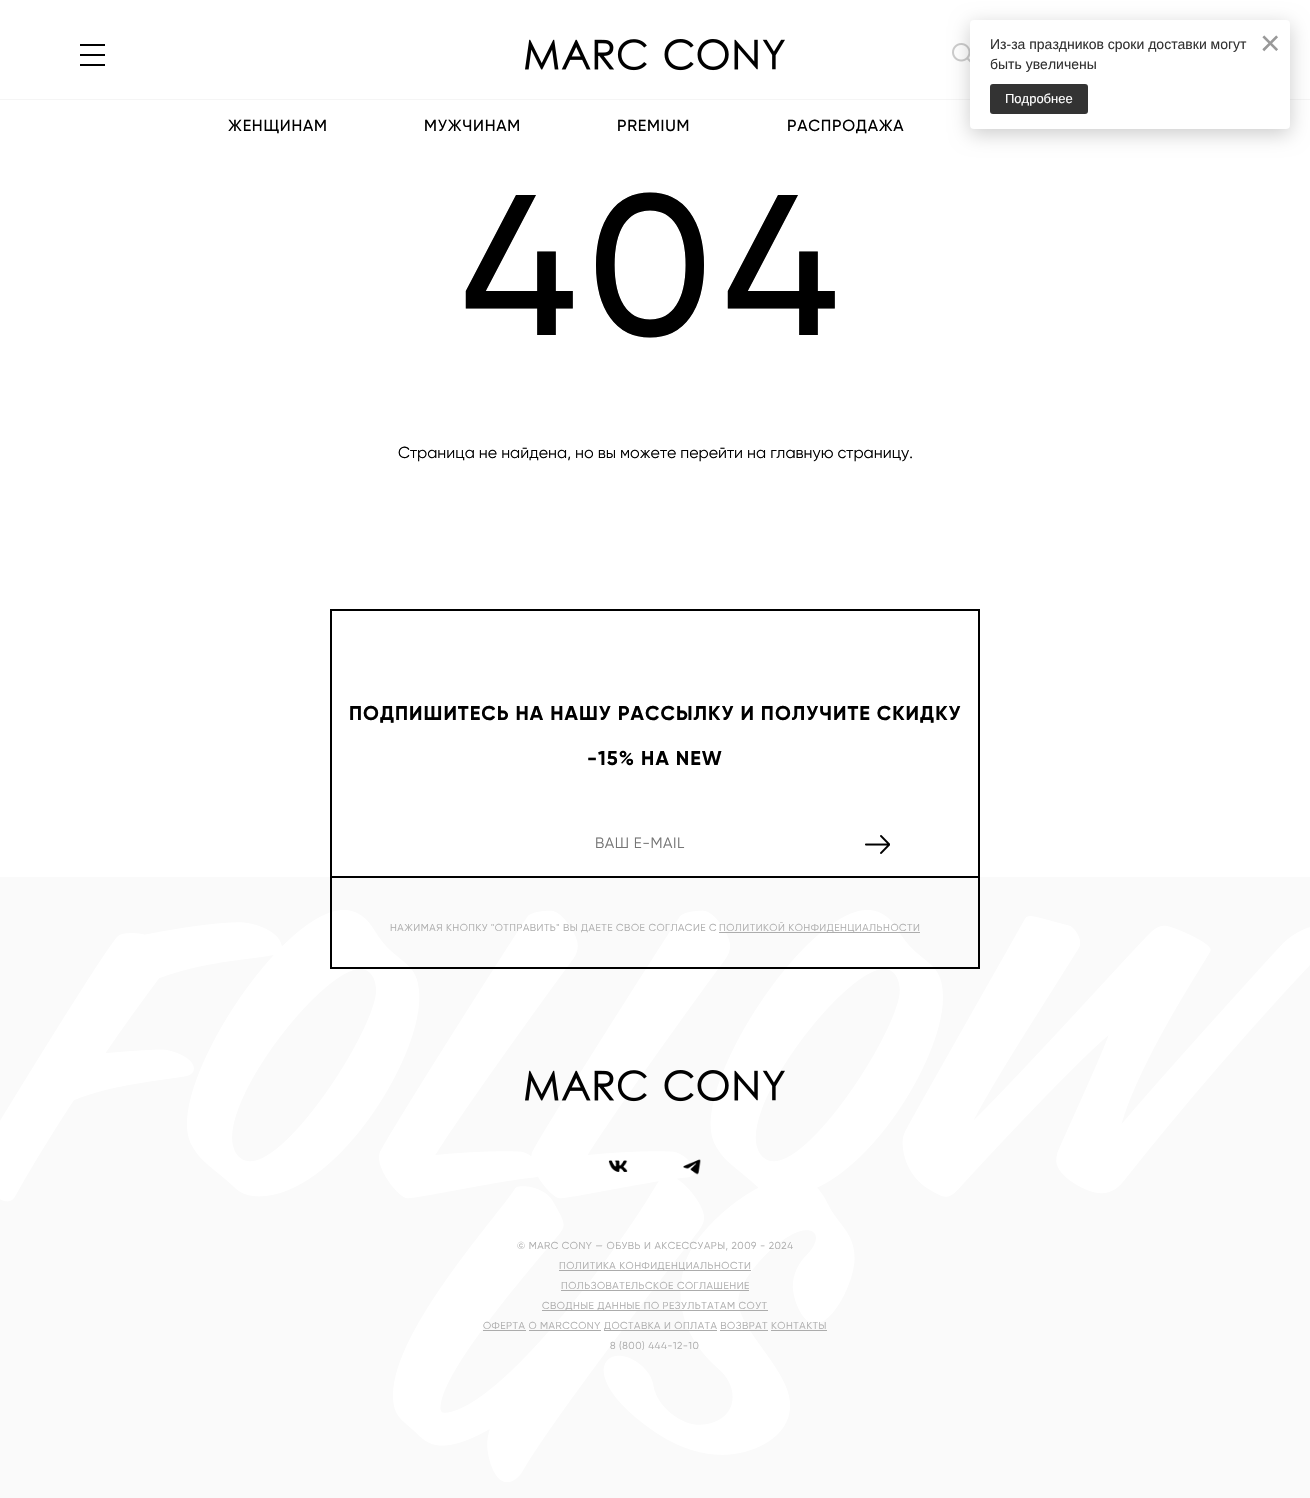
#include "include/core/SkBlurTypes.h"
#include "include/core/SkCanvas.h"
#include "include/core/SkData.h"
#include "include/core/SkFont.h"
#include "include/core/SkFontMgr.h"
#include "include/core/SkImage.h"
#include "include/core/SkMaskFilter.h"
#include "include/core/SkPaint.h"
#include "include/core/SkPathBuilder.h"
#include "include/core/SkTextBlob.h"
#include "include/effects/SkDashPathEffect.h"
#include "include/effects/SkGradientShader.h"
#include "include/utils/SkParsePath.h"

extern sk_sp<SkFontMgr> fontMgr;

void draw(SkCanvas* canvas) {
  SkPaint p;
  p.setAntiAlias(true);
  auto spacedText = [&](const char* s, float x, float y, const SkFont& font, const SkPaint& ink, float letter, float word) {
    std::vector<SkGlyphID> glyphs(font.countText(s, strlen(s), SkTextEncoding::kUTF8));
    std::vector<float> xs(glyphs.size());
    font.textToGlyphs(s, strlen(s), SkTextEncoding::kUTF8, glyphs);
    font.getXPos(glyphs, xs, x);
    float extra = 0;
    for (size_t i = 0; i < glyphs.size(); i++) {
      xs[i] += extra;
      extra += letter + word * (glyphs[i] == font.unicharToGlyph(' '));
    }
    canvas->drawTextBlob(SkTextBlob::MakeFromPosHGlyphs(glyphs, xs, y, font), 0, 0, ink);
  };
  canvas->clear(SK_ColorWHITE);
  p.setColor(SkColorSetRGB(245, 245, 245));
  canvas->drawRect(SkRect::MakeLTRB(0, 99, 1310, 100), p);
  canvas->drawImageRect(SkImages::DeferredFromEncodedData(SkData::MakeFromFileName("images/3.png")), SkRect::MakeLTRB(952, 43, 970, 63), SkSamplingOptions());
  p.setColor(SkColorSetARGB(51, 0, 0, 0));
  p.setMaskFilter(SkMaskFilter::MakeBlur(kNormal_SkBlurStyle, 10));
  canvas->drawRoundRect(SkRect::MakeLTRB(970, 25, 1290, 134), 4, 4, p);
  p.setMaskFilter(nullptr);
  p.setColor(SK_ColorWHITE);
  canvas->drawRoundRect(SkRect::MakeLTRB(970, 20, 1290, 129), 4, 4, p);
  p.setColor(SkColorSetRGB(51, 51, 51));
  canvas->drawRoundRect(SkRect::MakeLTRB(990, 84, 1088, 114), 3, 3, p);
  p.setColor(SkColorSetRGB(250, 250, 250));
  canvas->drawRect(SkRect::MakeLTRB(0, 877, 1310, 1498), p);
  canvas->drawImageRect(SkImages::DeferredFromEncodedData(SkData::MakeFromFileName("images/4.png")), SkRect::MakeLTRB(0, 910, 1310, 1482), SkSamplingOptions());
  p.setStyle(SkPaint::kStroke_Style);
  p.setStrokeWidth(2);
  p.setColor(SK_ColorBLACK);
  canvas->drawRect(SkRect::MakeLTRB(331, 610, 979, 968), p);
  canvas->drawImageRect(SkImages::DeferredFromEncodedData(SkData::MakeFromFileName("images/1.png")), SkRect::MakeLTRB(865, 835, 890, 854), SkSamplingOptions());
  p.setStyle(SkPaint::kFill_Style);
  canvas->drawRect(SkRect::MakeLTRB(332, 876, 978, 878), p);
  p.setColor(SkColorSetRGB(172, 172, 172));
  canvas->drawRect(SkRect::MakeLTRB(719, 932, 920, 933), p);
  p.setColor(SK_ColorBLACK);
  canvas->drawRect(SkRect::MakeLTRB(80, 54, 105, 56), p);
  canvas->drawRect(SkRect::MakeLTRB(80, 44, 105, 46), p);
  canvas->drawRect(SkRect::MakeLTRB(80, 64, 105, 66), p);
  canvas->drawImageRect(SkImages::DeferredFromEncodedData(SkData::MakeFromFileName("images/2.png")), SkRect::MakeLTRB(525, 39, 785, 71), SkSamplingOptions());
  canvas->drawImageRect(SkImages::DeferredFromEncodedData(SkData::MakeFromFileName("images/5.png")), SkRect::MakeLTRB(525, 1070, 785, 1102), SkSamplingOptions());
  canvas->drawImageRect(SkImages::DeferredFromEncodedData(SkData::MakeFromFileName("images/6.png")), SkRect::MakeLTRB(608, 1160, 628, 1172), SkSamplingOptions());
  canvas->drawImageRect(SkImages::DeferredFromEncodedData(SkData::MakeFromFileName("images/7.png")), SkRect::MakeLTRB(683, 1159, 701, 1175), SkSamplingOptions());
  p.setColor(SkColorSetRGB(172, 172, 172));
  canvas->drawRect(SkRect::MakeLTRB(559, 1270, 751, 1271), p);
  canvas->drawRect(SkRect::MakeLTRB(561, 1290, 749, 1291), p);
  canvas->drawRect(SkRect::MakeLTRB(542, 1310, 768, 1311), p);
  canvas->drawRect(SkRect::MakeLTRB(483, 1330, 526, 1331), p);
  canvas->drawRect(SkRect::MakeLTRB(604, 1330, 717, 1331), p);
  canvas->drawRect(SkRect::MakeLTRB(529, 1330, 601, 1331), p);
  canvas->drawRect(SkRect::MakeLTRB(720, 1330, 768, 1331), p);
  canvas->drawRect(SkRect::MakeLTRB(771, 1330, 827, 1331), p);
  SkFont font1(fontMgr->matchFamilyStyle("Liberation Sans", SkFontStyle::Normal()), 14);
  font1.setSubpixel(true);
  p.setColor(SkColorSetRGB(51, 51, 51));
  canvas->drawString("Из-за праздников сроки доставки могут", 990, 49, font1, p);
  canvas->drawString("быть увеличены", 990, 69, font1, p);
  SkFont font2(fontMgr->matchFamilyStyle("Liberation Sans", SkFontStyle::Normal()), 35);
  font2.setSubpixel(true);
  p.setColor(SkColorSetRGB(153, 153, 153));
  canvas->drawString("×", 1260, 55, font2, p);
  SkFont font3(fontMgr->matchFamilyStyle("Liberation Sans", SkFontStyle::Normal()), 13);
  font3.setSubpixel(true);
  p.setColor(SK_ColorWHITE);
  canvas->drawString("Подробнее", 1005, 103, font3, p);
  SkFont font4(fontMgr->matchFamilyStyle("Gilroy", SkFontStyle(500, SkFontStyle::kNormal_Width, SkFontStyle::kUpright_Slant)), 200);
  font4.setSubpixel(true);
  p.setColor(SK_ColorBLACK);
  spacedText("404", 461, 335, font4, p, 10, 0);
  SkFont font5(fontMgr->matchFamilyStyle("Gilroy", SkFontStyle::Normal()), 16);
  font5.setSubpixel(true);
  canvas->drawString("Страница не найдена, но вы можете перейти на главную страницу.", 398, 458, font5, p);
  SkFont font6(fontMgr->matchFamilyStyle("Gilroy", SkFontStyle::Bold()), 20);
  font6.setSubpixel(true);
  spacedText("ПОДПИШИТЕСЬ НА НАШУ РАССЫЛКУ И ПОЛУЧИТЕ СКИДКУ", 349, 720, font6, p, 1, 0);
  spacedText("-15% НА NEW", 587, 765, font6, p, 1, 0);
  SkFont font7(fontMgr->matchFamilyStyle("Gilroy", SkFontStyle::Normal()), 15);
  font7.setSubpixel(true);
  p.setColor(SkColorSetRGB(117, 117, 117));
  spacedText("ВАШ E-MAIL", 595, 848, font7, p, 0.5f, 0);
  SkFont font8(fontMgr->matchFamilyStyle("Gilroy", SkFontStyle::Normal()), 10.1f);
  font8.setSubpixel(true);
  p.setColor(SkColorSetRGB(172, 172, 172));
  spacedText("НАЖИМАЯ КНОПКУ \"ОТПРАВИТЬ\" ВЫ ДАЕТЕ СВОЕ СОГЛАСИЕ С", 390, 931, font8, p, 0.5f, 0);
  spacedText("ПОЛИТИКОЙ КОНФИДЕНЦИАЛЬНОСТИ", 719, 931, font8, p, 0.5f, 0);
  SkFont font9(fontMgr->matchFamilyStyle("Gilroy", SkFontStyle(500, SkFontStyle::kNormal_Width, SkFontStyle::kUpright_Slant)), 16);
  font9.setSubpixel(true);
  p.setColor(SK_ColorBLACK);
  spacedText("ЖЕНЩИНАМ", 228, 131, font9, p, 0.75f, 0);
  spacedText("МУЖЧИНАМ", 424, 131, font9, p, 0.75f, 0);
  spacedText("PREMIUM", 617, 131, font9, p, 0.75f, 0);
  spacedText("РАСПРОДАЖА", 787, 131, font9, p, 0.75f, 0);
  p.setColor(SkColorSetRGB(172, 172, 172));
  spacedText("© MARC CONY — ОБУВЬ И АКСЕССУАРЫ, 2009 - 2024", 517, 1249, font8, p, 0.5f, 0);
  spacedText("ПОЛИТИКА КОНФИДЕНЦИАЛЬНОСТИ", 559, 1269, font8, p, 0.5f, 0);
  spacedText("ПОЛЬЗОВАТЕЛЬСКОЕ СОГЛАШЕНИЕ", 561, 1289, font8, p, 0.5f, 0);
  spacedText("СВОДНЫЕ ДАННЫЕ ПО РЕЗУЛЬТАТАМ СОУТ", 542, 1309, font8, p, 0.5f, 0);
  spacedText("ОФЕРТА О MARCCONY", 483, 1329, font8, p, 0.5f, 0);
  spacedText("ДОСТАВКА И ОПЛАТА ВОЗВРАТ КОНТАКТЫ", 604, 1329, font8, p, 0.5f, 0);
  spacedText("8 (800) 444-12-10", 610, 1349, font8, p, 0.5f, 0);
}
